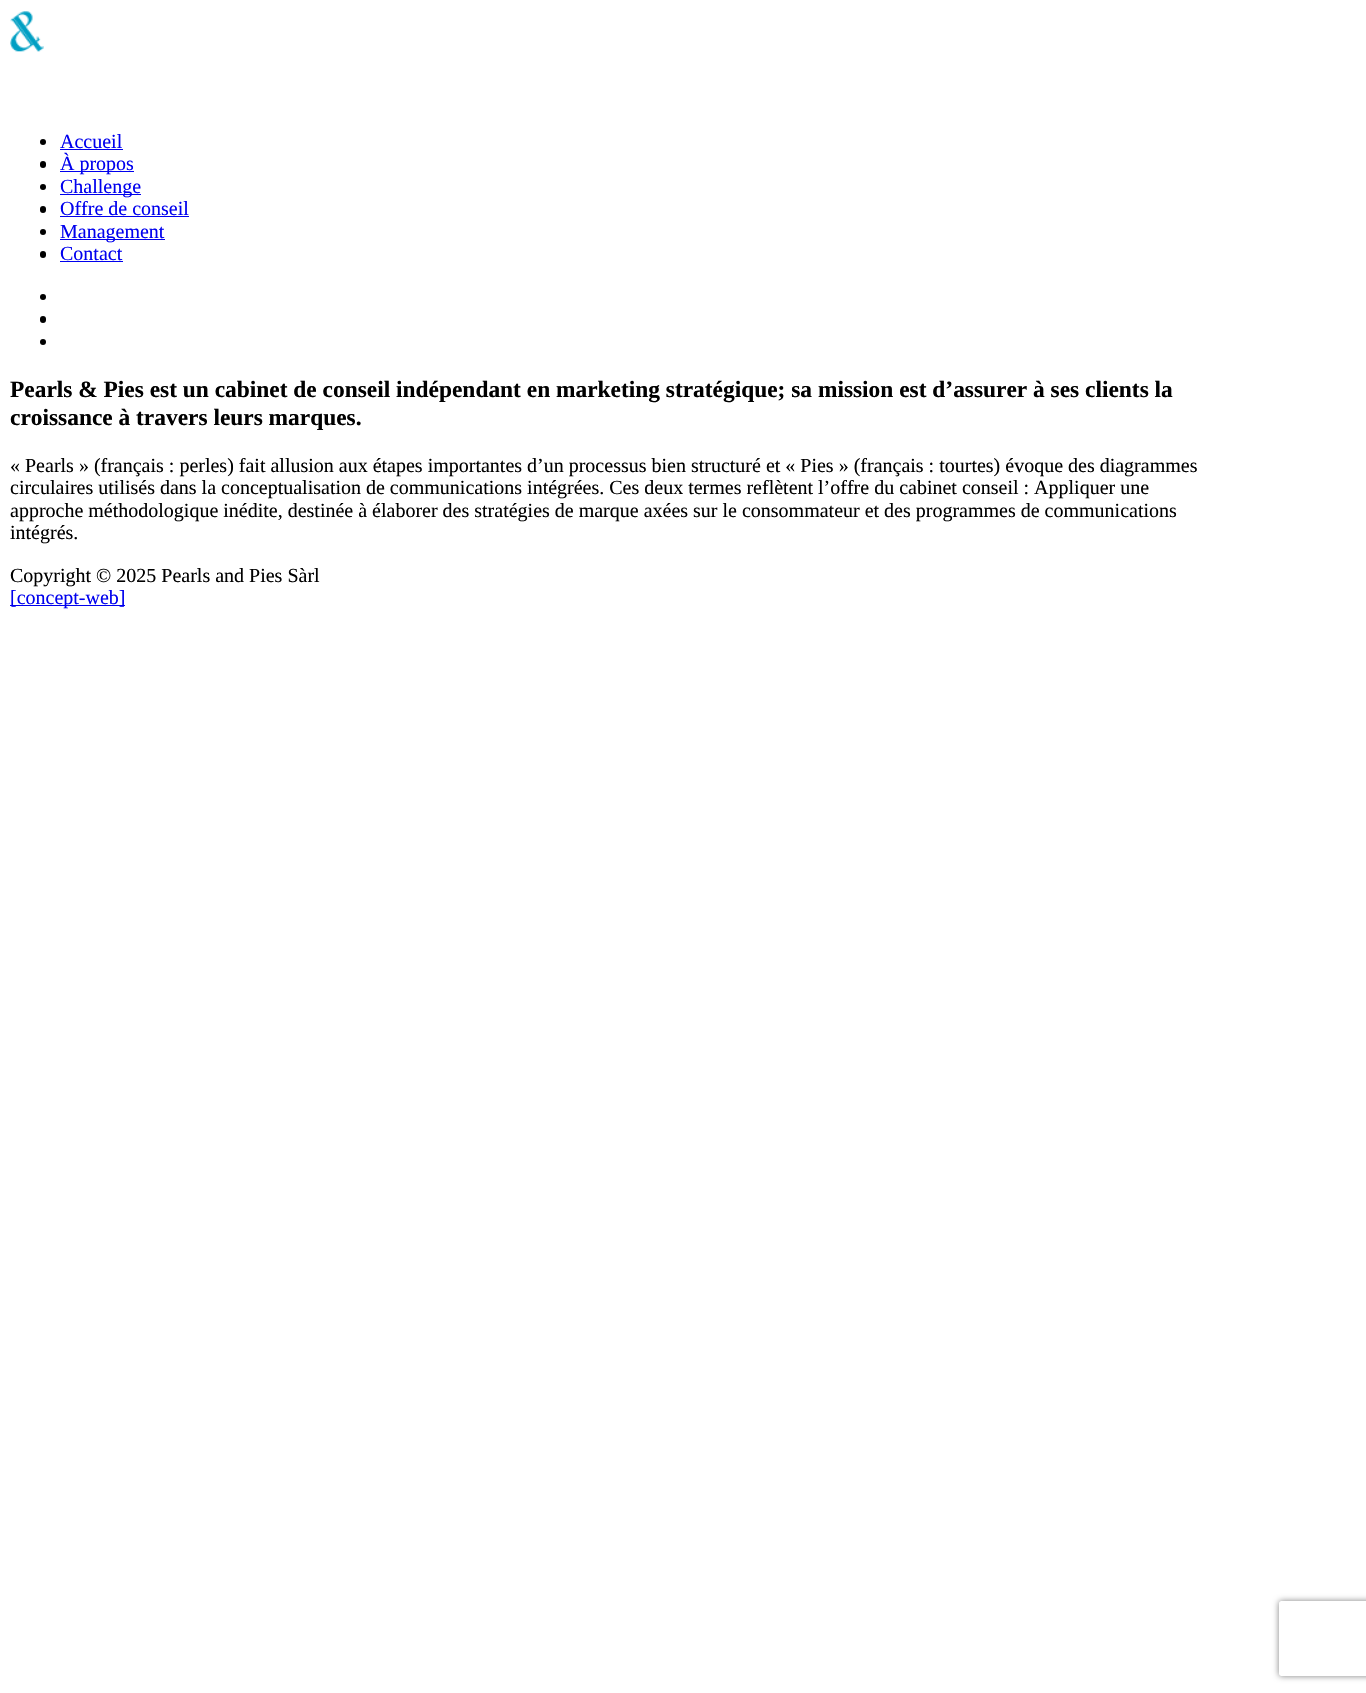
#include "include/core/SkBlurTypes.h"
#include "include/core/SkCanvas.h"
#include "include/core/SkData.h"
#include "include/core/SkFont.h"
#include "include/core/SkFontMgr.h"
#include "include/core/SkImage.h"
#include "include/core/SkMaskFilter.h"
#include "include/core/SkPaint.h"
#include "include/core/SkPathBuilder.h"
#include "include/core/SkTextBlob.h"
#include "include/effects/SkDashPathEffect.h"
#include "include/effects/SkGradientShader.h"
#include "include/utils/SkParsePath.h"

extern sk_sp<SkFontMgr> fontMgr;

void draw(SkCanvas* canvas) {
  SkPaint p;
  p.setAntiAlias(true);
  canvas->clear(SK_ColorWHITE);
  canvas->drawImageRect(SkImages::DeferredFromEncodedData(SkData::MakeFromFileName("images/1.png")), SkRect::MakeLTRB(10, 11, 44, 52), SkSamplingOptions());
  p.setColor(SK_ColorBLACK);
  canvas->drawCircle(43, 142, 3, p);
  p.setColor(SkColorSetRGB(0, 0, 238));
  canvas->drawRect(SkRect::MakeLTRB(60, 149, 123, 150), p);
  p.setColor(SK_ColorBLACK);
  canvas->drawRoundRect(SkRect::MakeLTRB(40, 161, 46, 168), 3, 3, p);
  p.setColor(SkColorSetRGB(0, 0, 238));
  canvas->drawRect(SkRect::MakeLTRB(60, 171, 134, 172), p);
  p.setColor(SK_ColorBLACK);
  canvas->drawCircle(43, 187, 3, p);
  p.setColor(SkColorSetRGB(0, 0, 238));
  canvas->drawRect(SkRect::MakeLTRB(60, 194, 141, 195), p);
  p.setColor(SK_ColorBLACK);
  canvas->drawRoundRect(SkRect::MakeLTRB(40, 206, 46, 213), 3, 3, p);
  p.setColor(SkColorSetRGB(0, 0, 238));
  canvas->drawRect(SkRect::MakeLTRB(60, 216, 189, 217), p);
  p.setColor(SK_ColorBLACK);
  canvas->drawCircle(43, 232, 3, p);
  p.setColor(SkColorSetRGB(0, 0, 238));
  canvas->drawRect(SkRect::MakeLTRB(60, 239, 165, 240), p);
  p.setColor(SK_ColorBLACK);
  canvas->drawRoundRect(SkRect::MakeLTRB(40, 251, 46, 258), 3, 3, p);
  p.setColor(SkColorSetRGB(0, 0, 238));
  canvas->drawRect(SkRect::MakeLTRB(60, 261, 123, 262), p);
  p.setColor(SK_ColorBLACK);
  canvas->drawCircle(43, 297, 3, p);
  canvas->drawRoundRect(SkRect::MakeLTRB(40, 316, 46, 323), 3, 3, p);
  canvas->drawCircle(43, 342, 3, p);
  p.setColor(SkColorSetRGB(0, 0, 238));
  canvas->drawRect(SkRect::MakeLTRB(10, 605, 125, 606), p);
  canvas->save();
  canvas->clipPath(SkPathBuilder(SkPathFillType::kEvenOdd).moveTo(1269, 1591).lineTo(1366, 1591).lineTo(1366, 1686).lineTo(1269, 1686).close().moveTo(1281.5f, 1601).lineTo(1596.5f, 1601).cubicTo(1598, 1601, 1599, 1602, 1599, 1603.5f).lineTo(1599, 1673.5f).cubicTo(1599, 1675, 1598, 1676, 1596.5f, 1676).lineTo(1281.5f, 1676).cubicTo(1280, 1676, 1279, 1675, 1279, 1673.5f).lineTo(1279, 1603.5f).cubicTo(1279, 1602, 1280, 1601, 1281.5f, 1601).close().detach(), true);
  p.setColor(SkColorSetRGB(128, 128, 128));
  p.setMaskFilter(SkMaskFilter::MakeBlur(kNormal_SkBlurStyle, 3));
  canvas->drawRoundRect(SkRect::MakeLTRB(1279, 1601, 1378, 1676), 2.5f, 2.5f, p);
  p.setMaskFilter(nullptr);
  canvas->restore();
  SkFont font1(fontMgr->matchFamilyStyle("Liberation Serif", SkFontStyle::Normal()), 20);
  font1.setSubpixel(true);
  p.setColor(SkColorSetRGB(0, 0, 238));
  canvas->drawString("Accueil", 60, 148, font1, p);
  canvas->drawString("À propos", 60, 170, font1, p);
  canvas->drawString("Challenge", 60, 193, font1, p);
  canvas->drawString("Offre de conseil", 60, 215, font1, p);
  canvas->drawString("Management", 60, 238, font1, p);
  canvas->drawString("Contact", 60, 260, font1, p);
  SkFont font2(fontMgr->matchFamilyStyle("Liberation Serif", SkFontStyle::Bold()), 23.4f);
  font2.setSubpixel(true);
  p.setColor(SK_ColorBLACK);
  canvas->drawString("Pearls & Pies est un cabinet de conseil indépendant en marketing stratégique; sa mission est d’assurer à ses clients la", 10, 397, font2, p);
  canvas->drawString("croissance à travers leurs marques.", 10, 425, font2, p);
  canvas->drawString("« Pearls » (français : perles) fait allusion aux étapes importantes d’un processus bien structuré et « Pies » (français : tourtes) évoque des diagrammes", 10, 472, font1, p);
  canvas->drawString("circulaires utilisés dans la conceptualisation de communications intégrées. Ces deux termes reflètent l’offre du cabinet conseil : Appliquer une", 10, 494, font1, p);
  canvas->drawString("approche méthodologique inédite, destinée à élaborer des stratégies de marque axées sur le consommateur et des programmes de communications", 10, 517, font1, p);
  canvas->drawString("intégrés.", 10, 539, font1, p);
  canvas->drawString("Copyright © 2025 Pearls and Pies Sàrl", 10, 582, font1, p);
  p.setColor(SkColorSetRGB(0, 0, 238));
  canvas->drawString("[concept-web]", 10, 604, font1, p);
}
